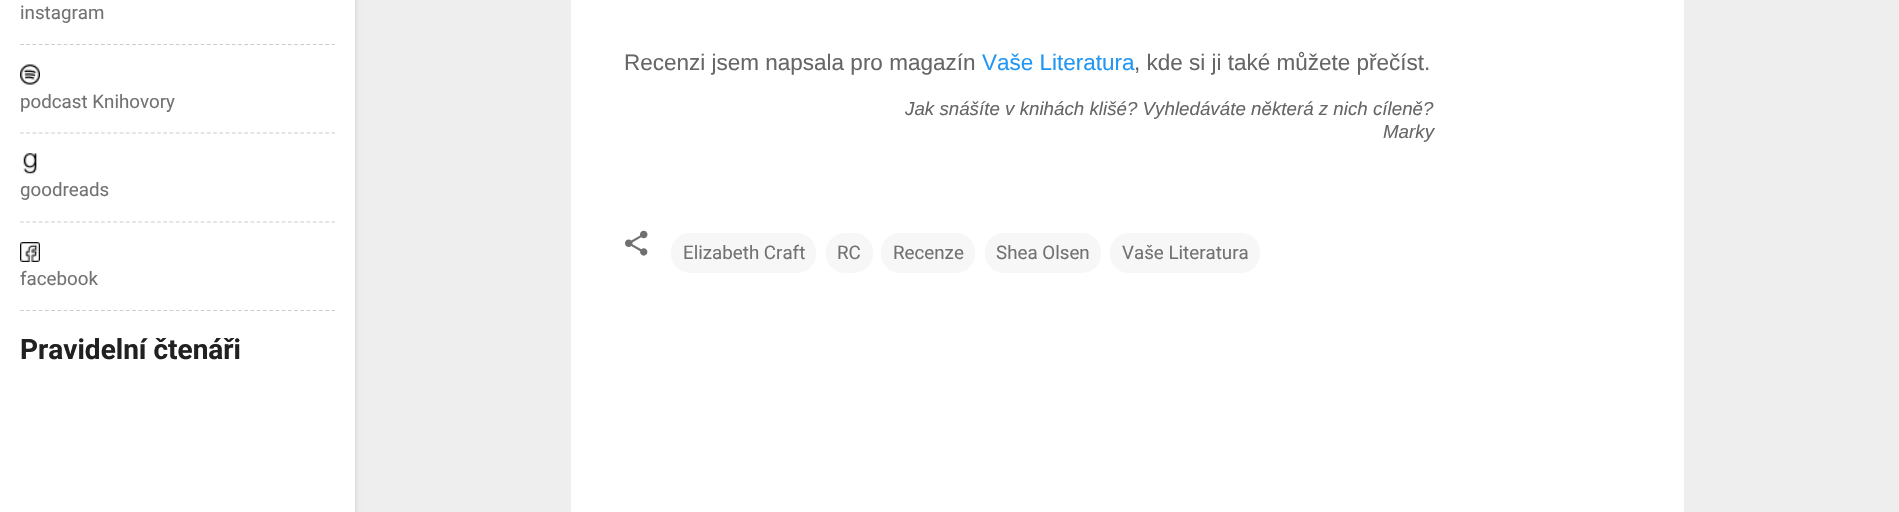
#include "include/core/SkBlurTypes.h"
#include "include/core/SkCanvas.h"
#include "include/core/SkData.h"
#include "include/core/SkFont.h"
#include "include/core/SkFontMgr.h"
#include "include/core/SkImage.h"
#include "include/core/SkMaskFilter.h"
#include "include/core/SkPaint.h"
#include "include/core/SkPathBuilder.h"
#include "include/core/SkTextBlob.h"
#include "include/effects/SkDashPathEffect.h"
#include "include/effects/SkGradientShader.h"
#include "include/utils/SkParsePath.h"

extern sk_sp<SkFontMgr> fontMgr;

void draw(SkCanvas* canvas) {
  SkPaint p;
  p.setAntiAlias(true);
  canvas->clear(SkColorSetRGB(238, 238, 238));
  p.setColor(SkColorSetARGB(26, 0, 0, 0));
  p.setMaskFilter(SkMaskFilter::MakeBlur(kNormal_SkBlurStyle, 2));
  canvas->drawRect(SkRect::MakeLTRB(1, -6, 356, 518), p);
  p.setMaskFilter(nullptr);
  p.setColor(SK_ColorWHITE);
  canvas->drawRect(SkRect::MakeLTRB(0, 0, 355, 512), p);
  p.setStyle(SkPaint::kStroke_Style);
  p.setStrokeWidth(1.2f);
  p.setColor(SkColorSetRGB(204, 204, 204));
  p.setPathEffect(SkDashPathEffect::Make({{3.75f, 2.48f}}, 0));
  canvas->drawPath(SkPathBuilder().moveTo(20, 44.5f).lineTo(335, 44.5f).detach(), p);
  p.setPathEffect(nullptr);
  canvas->drawImageRect(SkImages::DeferredFromEncodedData(SkData::MakeFromFileName("images/1.png")), SkRect::MakeLTRB(20, 64, 40, 85), SkSamplingOptions());
  p.setPathEffect(SkDashPathEffect::Make({{3.75f, 2.48f}}, 0));
  canvas->drawPath(SkPathBuilder().moveTo(20, 133).lineTo(335, 133).detach(), p);
  p.setPathEffect(nullptr);
  canvas->drawImageRect(SkImages::DeferredFromEncodedData(SkData::MakeFromFileName("images/2.png")), SkRect::MakeLTRB(23, 153, 37, 174), SkSamplingOptions());
  p.setPathEffect(SkDashPathEffect::Make({{3.75f, 2.48f}}, 0));
  canvas->drawPath(SkPathBuilder().moveTo(20, 222).lineTo(335, 222).detach(), p);
  p.setPathEffect(nullptr);
  canvas->drawImageRect(SkImages::DeferredFromEncodedData(SkData::MakeFromFileName("images/3.png")), SkRect::MakeLTRB(20, 242, 40, 262), SkSamplingOptions());
  p.setPathEffect(SkDashPathEffect::Make({{3.75f, 2.48f}}, 0));
  canvas->drawPath(SkPathBuilder().moveTo(20, 310.5f).lineTo(335, 310.5f).detach(), p);
  p.setPathEffect(nullptr);
  p.setStyle(SkPaint::kFill_Style);
  p.setColor(SK_ColorWHITE);
  canvas->drawRect(SkRect::MakeLTRB(571, 0, 1684, 512), p);
  canvas->drawImageRect(SkImages::DeferredFromEncodedData(SkData::MakeFromFileName("images/4.png")), SkRect::MakeLTRB(625, 230, 648, 256), SkSamplingOptions());
  p.setColor(SkColorSetRGB(247, 247, 247));
  canvas->drawRoundRect(SkRect::MakeLTRB(671, 233, 816, 273), 19, 19, p);
  canvas->drawRoundRect(SkRect::MakeLTRB(826, 233, 873, 273), 19, 19, p);
  canvas->drawRoundRect(SkRect::MakeLTRB(881, 233, 975, 273), 19, 19, p);
  canvas->drawRoundRect(SkRect::MakeLTRB(985, 233, 1101, 273), 19, 19, p);
  canvas->drawRoundRect(SkRect::MakeLTRB(1110, 233, 1260, 273), 19, 19, p);
  SkFont font1(fontMgr->matchFamilyStyle("Roboto", SkFontStyle::Normal()), 18.75f);
  font1.setSubpixel(true);
  p.setColor(SkColorSetRGB(114, 114, 114));
  canvas->drawString("instagram", 20, 19, font1, p);
  canvas->drawString("podcast Knihovory", 20, 108, font1, p);
  canvas->drawString("goodreads", 20, 196, font1, p);
  canvas->drawString("facebook", 20, 285, font1, p);
  SkFont font2(fontMgr->matchFamilyStyle("Roboto", SkFontStyle::Bold()), 28);
  font2.setSubpixel(true);
  p.setColor(SkColorSetRGB(33, 33, 33));
  canvas->drawString("Pravidelní čtenáři", 20, 359, font2, p);
  SkFont font3(fontMgr->matchFamilyStyle("Liberation Sans", SkFontStyle::Normal()), 22.5f);
  font3.setSubpixel(true);
  p.setColor(SkColorSetRGB(102, 102, 102));
  canvas->drawString("Recenzi jsem napsala pro magazín", 624, 70, font3, p);
  p.setColor(SkColorSetRGB(33, 150, 243));
  canvas->drawString("Vaše Literatura", 982, 70, font3, p);
  p.setColor(SkColorSetRGB(102, 102, 102));
  canvas->drawString(", kde si ji také můžete přečíst.", 1134, 70, font3, p);
  SkFont font4(fontMgr->matchFamilyStyle("Liberation Sans", SkFontStyle::Italic()), 18.75f);
  font4.setSubpixel(true);
  canvas->drawString("Jak snášíte v knihách klišé? Vyhledáváte některá z nich cíleně?", 905, 115, font4, p);
  canvas->drawString("Marky", 1383, 138, font4, p);
  p.setColor(SkColorSetRGB(114, 114, 114));
  canvas->drawString("Elizabeth Craft", 683, 259, font1, p);
  canvas->drawString("RC", 837, 259, font1, p);
  canvas->drawString("Recenze", 893, 259, font1, p);
  canvas->drawString("Shea Olsen", 996, 259, font1, p);
  canvas->drawString("Vaše Literatura", 1122, 259, font1, p);
}
